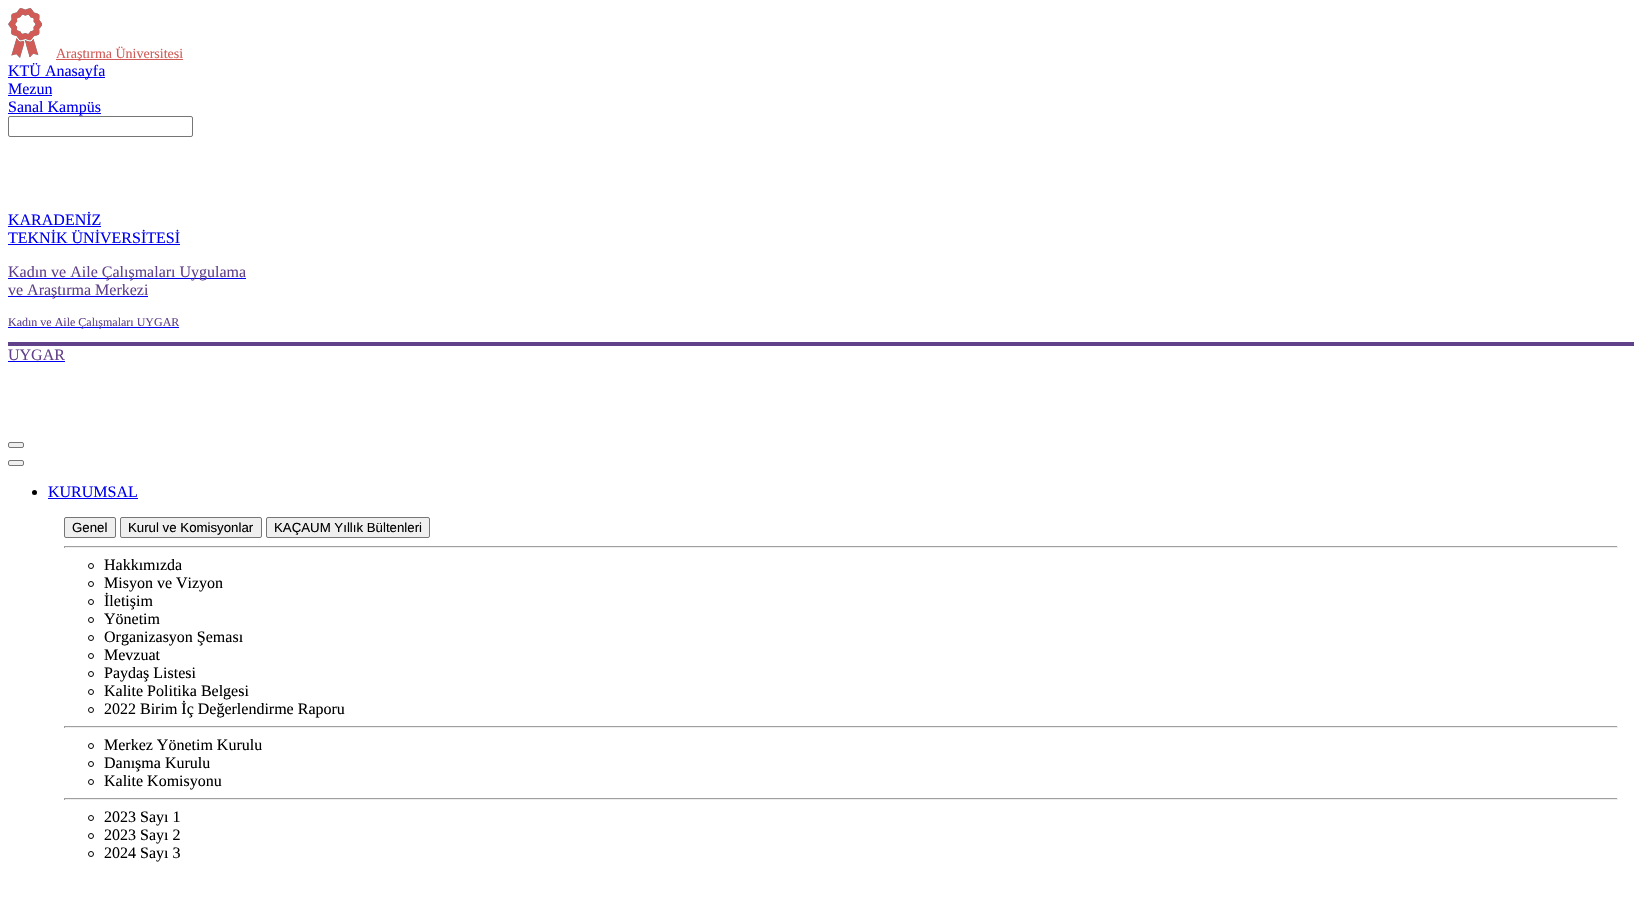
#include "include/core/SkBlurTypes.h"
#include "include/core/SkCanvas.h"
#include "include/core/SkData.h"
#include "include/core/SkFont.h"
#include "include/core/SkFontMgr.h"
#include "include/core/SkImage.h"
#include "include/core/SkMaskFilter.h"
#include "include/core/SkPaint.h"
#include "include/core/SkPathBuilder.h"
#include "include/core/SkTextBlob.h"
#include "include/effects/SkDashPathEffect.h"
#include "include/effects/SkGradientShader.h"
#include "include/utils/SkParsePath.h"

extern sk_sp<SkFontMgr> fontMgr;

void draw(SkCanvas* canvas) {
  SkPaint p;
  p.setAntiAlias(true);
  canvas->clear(SK_ColorWHITE);
  canvas->drawImageRect(SkImages::DeferredFromEncodedData(SkData::MakeFromFileName("images/1.png")), SkRect::MakeLTRB(8, 8, 42, 58), SkSamplingOptions());
  p.setColor(SkColorSetRGB(208, 91, 87));
  canvas->drawRect(SkRect::MakeLTRB(56, 59, 183, 60), p);
  p.setColor(SkColorSetRGB(0, 0, 238));
  canvas->drawRect(SkRect::MakeLTRB(8, 77, 105, 78), p);
  canvas->drawRect(SkRect::MakeLTRB(8, 95, 52, 96), p);
  canvas->drawRect(SkRect::MakeLTRB(8, 113, 101, 114), p);
  p.setStyle(SkPaint::kStroke_Style);
  p.setStrokeWidth(1);
  p.setColor(SkColorSetRGB(118, 118, 118));
  canvas->drawRoundRect(SkRect::MakeLTRB(8.5f, 116.5f, 192.5f, 136.5f), 1.5f, 1.5f, p);
  p.setStyle(SkPaint::kFill_Style);
  p.setColor(SkColorSetRGB(0, 0, 238));
  canvas->drawRect(SkRect::MakeLTRB(8, 226, 101, 227), p);
  canvas->drawRect(SkRect::MakeLTRB(8, 244, 180, 245), p);
  canvas->drawRect(SkRect::MakeLTRB(8, 278, 246, 279), p);
  canvas->drawRect(SkRect::MakeLTRB(8, 296, 148, 297), p);
  canvas->drawRect(SkRect::MakeLTRB(8, 327, 179, 328), p);
  p.setColor(SkColorSetRGB(97, 65, 137));
  canvas->drawRect(SkRect::MakeLTRB(8, 342, 1634, 346), p);
  p.setColor(SkColorSetRGB(0, 0, 238));
  canvas->drawRect(SkRect::MakeLTRB(8, 361, 65, 362), p);
  p.setColor(SkColorSetRGB(239, 239, 239));
  canvas->drawRoundRect(SkRect::MakeLTRB(8.5f, 442.5f, 23.5f, 447.5f), 1.5f, 1.5f, p);
  p.setStyle(SkPaint::kStroke_Style);
  p.setColor(SkColorSetRGB(118, 118, 118));
  canvas->drawRoundRect(SkRect::MakeLTRB(8.5f, 442.5f, 23.5f, 447.5f), 1.5f, 1.5f, p);
  p.setStyle(SkPaint::kFill_Style);
  p.setColor(SkColorSetRGB(239, 239, 239));
  canvas->drawRoundRect(SkRect::MakeLTRB(8.5f, 460.5f, 23.5f, 465.5f), 1.5f, 1.5f, p);
  p.setStyle(SkPaint::kStroke_Style);
  p.setColor(SkColorSetRGB(118, 118, 118));
  canvas->drawRoundRect(SkRect::MakeLTRB(8.5f, 460.5f, 23.5f, 465.5f), 1.5f, 1.5f, p);
  p.setStyle(SkPaint::kFill_Style);
  p.setColor(SK_ColorBLACK);
  canvas->drawCircle(34.5f, 492.5f, 2.5f, p);
  p.setColor(SkColorSetRGB(0, 0, 238));
  canvas->drawRect(SkRect::MakeLTRB(48, 498, 138, 499), p);
  p.setColor(SkColorSetRGB(239, 239, 239));
  canvas->drawRoundRect(SkRect::MakeLTRB(64.5f, 517.5f, 115.5f, 537.5f), 1.5f, 1.5f, p);
  p.setStyle(SkPaint::kStroke_Style);
  p.setColor(SkColorSetRGB(118, 118, 118));
  canvas->drawRoundRect(SkRect::MakeLTRB(64.5f, 517.5f, 115.5f, 537.5f), 1.5f, 1.5f, p);
  p.setStyle(SkPaint::kFill_Style);
  p.setColor(SkColorSetRGB(239, 239, 239));
  canvas->drawRoundRect(SkRect::MakeLTRB(120.5f, 517.5f, 261.5f, 537.5f), 1.5f, 1.5f, p);
  p.setStyle(SkPaint::kStroke_Style);
  p.setColor(SkColorSetRGB(118, 118, 118));
  canvas->drawRoundRect(SkRect::MakeLTRB(120.5f, 517.5f, 261.5f, 537.5f), 1.5f, 1.5f, p);
  p.setStyle(SkPaint::kFill_Style);
  p.setColor(SkColorSetRGB(239, 239, 239));
  canvas->drawRoundRect(SkRect::MakeLTRB(266.5f, 517.5f, 429.5f, 537.5f), 1.5f, 1.5f, p);
  p.setStyle(SkPaint::kStroke_Style);
  p.setColor(SkColorSetRGB(118, 118, 118));
  canvas->drawRoundRect(SkRect::MakeLTRB(266.5f, 517.5f, 429.5f, 537.5f), 1.5f, 1.5f, p);
  p.setStyle(SkPaint::kFill_Style);
  p.setColor(SkColorSetRGB(159, 159, 159));
  canvas->drawRect(SkRect::MakeLTRB(64, 546, 1618, 547), p);
  p.setColor(SkColorSetRGB(238, 238, 238));
  canvas->drawRect(SkRect::MakeLTRB(1617, 546, 1618, 548), p);
  canvas->drawRect(SkRect::MakeLTRB(64, 547, 1618, 548), p);
  p.setColor(SkColorSetRGB(159, 159, 159));
  canvas->drawRect(SkRect::MakeLTRB(64, 546, 65, 548), p);
  p.setStyle(SkPaint::kStroke_Style);
  p.setColor(SK_ColorBLACK);
  canvas->drawCircle(91, 566, 2.5f, p);
  canvas->drawCircle(91, 584, 2.5f, p);
  canvas->drawCircle(91, 602, 2.5f, p);
  canvas->drawCircle(91, 620, 2.5f, p);
  canvas->drawCircle(91, 638, 2.5f, p);
  canvas->drawCircle(91, 656, 2.5f, p);
  canvas->drawCircle(91, 674, 2.5f, p);
  canvas->drawCircle(91, 692, 2.5f, p);
  canvas->drawCircle(91, 710, 2.5f, p);
  p.setStyle(SkPaint::kFill_Style);
  p.setColor(SkColorSetRGB(159, 159, 159));
  canvas->drawRect(SkRect::MakeLTRB(64, 726, 1618, 727), p);
  p.setColor(SkColorSetRGB(238, 238, 238));
  canvas->drawRect(SkRect::MakeLTRB(1617, 726, 1618, 728), p);
  canvas->drawRect(SkRect::MakeLTRB(64, 727, 1618, 728), p);
  p.setColor(SkColorSetRGB(159, 159, 159));
  canvas->drawRect(SkRect::MakeLTRB(64, 726, 65, 728), p);
  p.setStyle(SkPaint::kStroke_Style);
  p.setColor(SK_ColorBLACK);
  canvas->drawCircle(91, 746, 2.5f, p);
  canvas->drawCircle(91, 764, 2.5f, p);
  canvas->drawCircle(91, 782, 2.5f, p);
  p.setStyle(SkPaint::kFill_Style);
  p.setColor(SkColorSetRGB(159, 159, 159));
  canvas->drawRect(SkRect::MakeLTRB(64, 798, 1618, 799), p);
  p.setColor(SkColorSetRGB(238, 238, 238));
  canvas->drawRect(SkRect::MakeLTRB(1617, 798, 1618, 800), p);
  canvas->drawRect(SkRect::MakeLTRB(64, 799, 1618, 800), p);
  p.setColor(SkColorSetRGB(159, 159, 159));
  canvas->drawRect(SkRect::MakeLTRB(64, 798, 65, 800), p);
  p.setStyle(SkPaint::kStroke_Style);
  p.setColor(SK_ColorBLACK);
  canvas->drawCircle(91, 818, 2.5f, p);
  canvas->drawCircle(91, 836, 2.5f, p);
  canvas->drawCircle(91, 854, 2.5f, p);
  SkFont font1(fontMgr->matchFamilyStyle("Liberation Serif", SkFontStyle::Normal()), 14);
  font1.setSubpixel(true);
  p.setStyle(SkPaint::kFill_Style);
  p.setColor(SkColorSetRGB(208, 91, 87));
  canvas->drawString("Araştırma Üniversitesi", 56, 58, font1, p);
  SkFont font2(fontMgr->matchFamilyStyle("Liberation Serif", SkFontStyle::Normal()), 16);
  font2.setSubpixel(true);
  p.setColor(SkColorSetRGB(0, 0, 238));
  canvas->drawString("KTÜ Anasayfa", 8, 76, font2, p);
  canvas->drawString("Mezun", 8, 94, font2, p);
  canvas->drawString("Sanal Kampüs", 8, 112, font2, p);
  canvas->drawString("KARADENİZ", 8, 225, font2, p);
  canvas->drawString("TEKNİK ÜNİVERSİTESİ", 8, 243, font2, p);
  p.setColor(SkColorSetRGB(97, 65, 137));
  canvas->drawString("Kadın ve Aile Çalışmaları Uygulama", 8, 277, font2, p);
  canvas->drawString("ve Araştırma Merkezi", 8, 295, font2, p);
  SkFont font3(fontMgr->matchFamilyStyle("Liberation Serif", SkFontStyle::Normal()), 12);
  font3.setSubpixel(true);
  canvas->drawString("Kadın ve Aile Çalışmaları UYGAR", 8, 326, font3, p);
  canvas->drawString("UYGAR", 8, 360, font2, p);
  p.setColor(SkColorSetRGB(0, 0, 238));
  canvas->drawString("KURUMSAL", 48, 497, font2, p);
  SkFont font4(fontMgr->matchFamilyStyle("Liberation Sans", SkFontStyle::Normal()), 13.25f);
  font4.setSubpixel(true);
  p.setColor(SK_ColorBLACK);
  canvas->drawString("Genel", 72, 532, font4, p);
  canvas->drawString("Kurul ve Komisyonlar", 128, 532, font4, p);
  canvas->drawString("KAÇAUM Yıllık Bültenleri", 274, 532, font4, p);
  canvas->drawString("Hakkımızda", 104, 570, font2, p);
  canvas->drawString("Misyon ve Vizyon", 104, 588, font2, p);
  canvas->drawString("İletişim", 104, 606, font2, p);
  canvas->drawString("Yönetim", 104, 624, font2, p);
  canvas->drawString("Organizasyon Şeması", 104, 642, font2, p);
  canvas->drawString("Mevzuat", 104, 660, font2, p);
  canvas->drawString("Paydaş Listesi", 104, 678, font2, p);
  canvas->drawString("Kalite Politika Belgesi", 104, 696, font2, p);
  canvas->drawString("2022 Birim İç Değerlendirme Raporu", 104, 714, font2, p);
  canvas->drawString("Merkez Yönetim Kurulu", 104, 750, font2, p);
  canvas->drawString("Danışma Kurulu", 104, 768, font2, p);
  canvas->drawString("Kalite Komisyonu", 104, 786, font2, p);
  canvas->drawString("2023 Sayı 1", 104, 822, font2, p);
  canvas->drawString("2023 Sayı 2", 104, 840, font2, p);
  canvas->drawString("2024 Sayı 3", 104, 858, font2, p);
}
